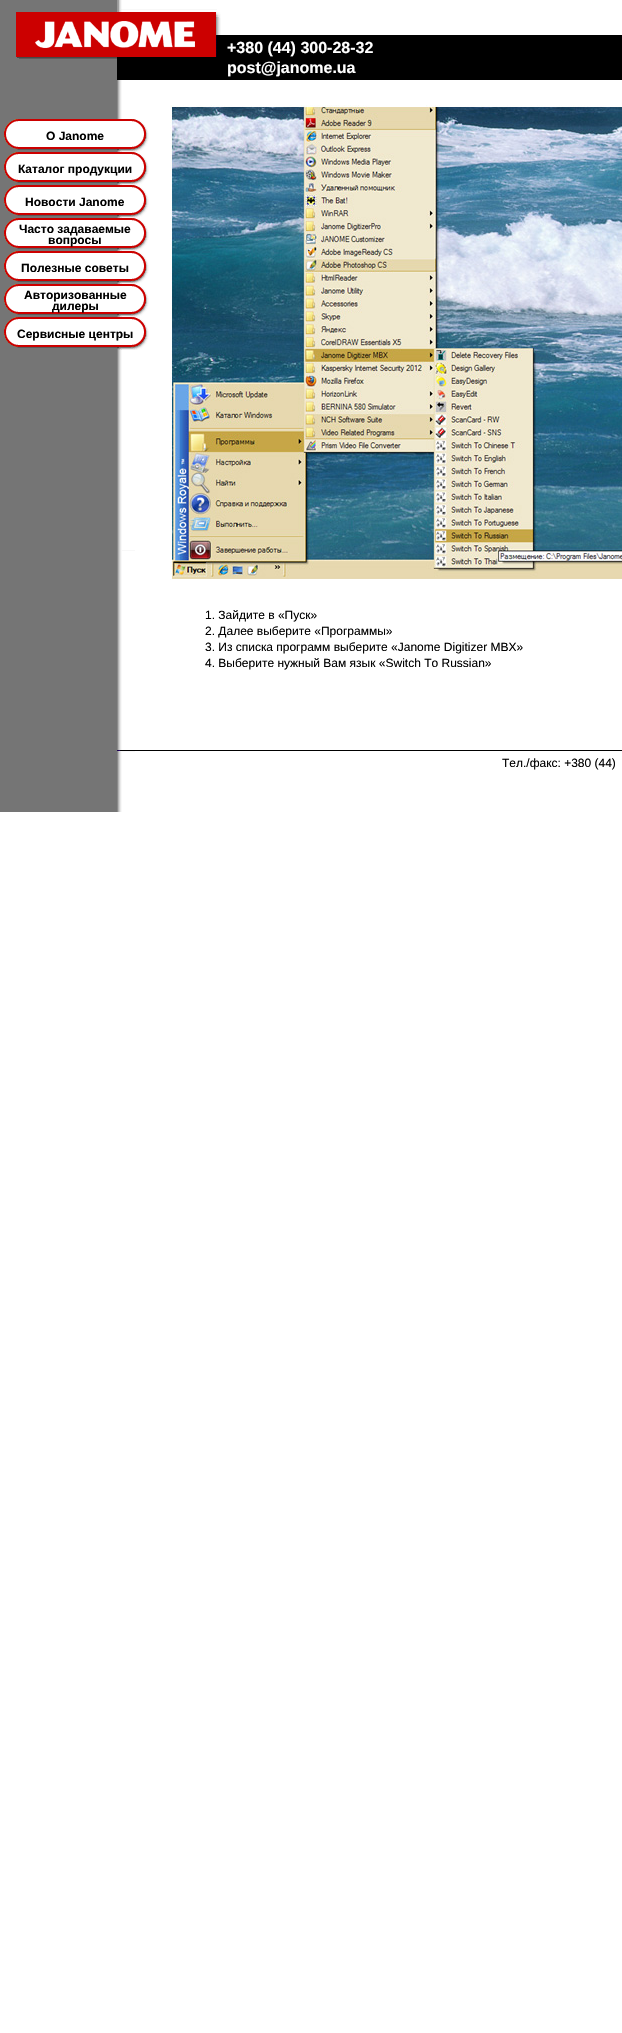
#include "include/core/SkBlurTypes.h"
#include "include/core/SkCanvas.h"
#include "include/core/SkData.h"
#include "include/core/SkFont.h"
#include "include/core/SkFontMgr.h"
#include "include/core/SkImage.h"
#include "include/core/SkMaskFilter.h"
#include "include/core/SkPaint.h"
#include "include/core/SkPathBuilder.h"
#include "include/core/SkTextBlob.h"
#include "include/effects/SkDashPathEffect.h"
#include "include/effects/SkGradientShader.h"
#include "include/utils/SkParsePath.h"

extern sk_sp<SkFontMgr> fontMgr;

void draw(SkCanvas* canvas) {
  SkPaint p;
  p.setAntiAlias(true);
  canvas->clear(SK_ColorWHITE);
  canvas->drawImageRect(SkImages::DeferredFromEncodedData(SkData::MakeFromFileName("images/1.png")), SkRect::MakeLTRB(0, 0, 217, 12), SkSamplingOptions());
  canvas->drawImageRect(SkImages::DeferredFromEncodedData(SkData::MakeFromFileName("images/2.png")), SkRect::MakeLTRB(0, 12, 223, 80), SkSamplingOptions());
  p.setColor(SK_ColorBLACK);
  canvas->drawRect(SkRect::MakeLTRB(223, 35, 622, 80), p);
  canvas->drawImageRect(SkImages::DeferredFromEncodedData(SkData::MakeFromFileName("images/3.png")), SkRect::MakeLTRB(0, 80, 135, 750), SkSamplingOptions());
  p.setColor(SK_ColorWHITE);
  canvas->drawRect(SkRect::MakeLTRB(122, 80, 135, 81), p);
  canvas->drawImageRect(SkImages::DeferredFromEncodedData(SkData::MakeFromFileName("images/4.png")), SkRect::MakeLTRB(4, 119, 149, 152), SkSamplingOptions());
  canvas->drawImageRect(SkImages::DeferredFromEncodedData(SkData::MakeFromFileName("images/4.png")), SkRect::MakeLTRB(4, 152, 149, 185), SkSamplingOptions());
  canvas->drawImageRect(SkImages::DeferredFromEncodedData(SkData::MakeFromFileName("images/4.png")), SkRect::MakeLTRB(4, 185, 149, 218), SkSamplingOptions());
  canvas->drawImageRect(SkImages::DeferredFromEncodedData(SkData::MakeFromFileName("images/4.png")), SkRect::MakeLTRB(4, 218, 149, 251), SkSamplingOptions());
  canvas->drawImageRect(SkImages::DeferredFromEncodedData(SkData::MakeFromFileName("images/4.png")), SkRect::MakeLTRB(4, 251, 149, 284), SkSamplingOptions());
  canvas->drawImageRect(SkImages::DeferredFromEncodedData(SkData::MakeFromFileName("images/4.png")), SkRect::MakeLTRB(4, 284, 149, 317), SkSamplingOptions());
  canvas->drawImageRect(SkImages::DeferredFromEncodedData(SkData::MakeFromFileName("images/4.png")), SkRect::MakeLTRB(4, 317, 149, 350), SkSamplingOptions());
  canvas->drawImageRect(SkImages::DeferredFromEncodedData(SkData::MakeFromFileName("images/5.png")), SkRect::MakeLTRB(170, 105, 622, 580), SkSamplingOptions());
  canvas->drawImageRect(SkImages::DeferredFromEncodedData(SkData::MakeFromFileName("images/6.png")), SkRect::MakeLTRB(0, 750, 150, 751), SkSamplingOptions());
  p.setColor(SK_ColorBLACK);
  canvas->drawRect(SkRect::MakeLTRB(150, 750, 622, 751), p);
  canvas->drawImageRect(SkImages::DeferredFromEncodedData(SkData::MakeFromFileName("images/7.png")), SkRect::MakeLTRB(0, 751, 135, 812), SkSamplingOptions());
  SkFont font1(fontMgr->matchFamilyStyle("Liberation Sans", SkFontStyle::Bold()), 16);
  font1.setSubpixel(true);
  p.setColor(SK_ColorWHITE);
  canvas->drawString("+380 (44) 300-28-32", 227, 53, font1, p);
  canvas->drawString("post@janome.ua", 227, 73, font1, p);
  SkFont font2(fontMgr->matchFamilyStyle("Liberation Sans", SkFontStyle::Bold()), 12);
  font2.setSubpixel(true);
  p.setColor(SK_ColorBLACK);
  canvas->drawString("О Janome", 46, 140, font2, p);
  canvas->drawString("Каталог продукции", 18, 173, font2, p);
  canvas->drawString("Новости Janome", 25, 206, font2, p);
  canvas->drawString("Часто задаваемые", 19, 233, font2, p);
  canvas->drawString("вопросы", 48, 244, font2, p);
  canvas->drawString("Полезные советы", 21, 272, font2, p);
  canvas->drawString("Авторизованные", 24, 299, font2, p);
  canvas->drawString("дилеры", 52, 310, font2, p);
  canvas->drawString("Сервисные центры", 17, 338, font2, p);
  SkFont font3(fontMgr->matchFamilyStyle("Liberation Sans", SkFontStyle::Normal()), 12);
  font3.setSubpixel(true);
  canvas->drawString("1. Зайдите в «Пуск»", 205, 619, font3, p);
  canvas->drawString("2. Далее выберите «Программы»", 205, 635, font3, p);
  canvas->drawString("3. Из списка программ выберите «Janome Digitizer MBX»", 205, 651, font3, p);
  canvas->drawString("4. Выберите нужный Вам язык «Switch To Russian»", 205, 667, font3, p);
  canvas->drawString("Тел./факс: +380 (44)", 502, 767, font3, p);
}
